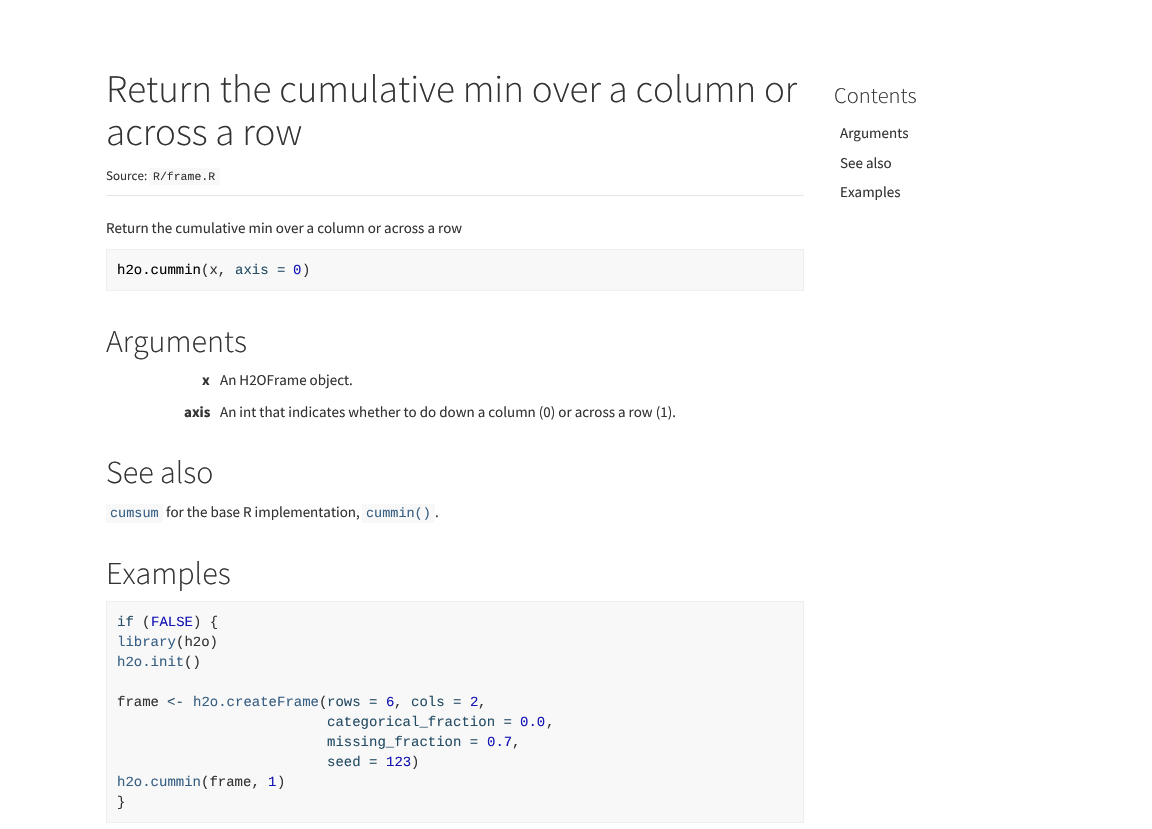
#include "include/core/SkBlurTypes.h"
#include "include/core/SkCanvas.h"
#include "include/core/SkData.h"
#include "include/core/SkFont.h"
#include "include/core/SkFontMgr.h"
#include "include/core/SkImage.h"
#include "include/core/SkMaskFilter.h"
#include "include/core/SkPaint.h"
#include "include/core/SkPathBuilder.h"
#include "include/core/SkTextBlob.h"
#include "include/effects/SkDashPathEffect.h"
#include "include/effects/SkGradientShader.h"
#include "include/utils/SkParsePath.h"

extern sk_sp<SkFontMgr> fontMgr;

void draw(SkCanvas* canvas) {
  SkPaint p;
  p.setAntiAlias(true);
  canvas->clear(SK_ColorWHITE);
  p.setColor(SkColorSetRGB(230, 230, 230));
  canvas->drawRect(SkRect::MakeLTRB(106, 195, 804, 196), p);
  p.setColor(SkColorSetRGB(248, 248, 248));
  canvas->drawRect(SkRect::MakeLTRB(149, 168, 220, 185), p);
  canvas->drawRect(SkRect::MakeLTRB(106.5f, 249.5f, 803.5f, 290.5f), p);
  p.setStyle(SkPaint::kStroke_Style);
  p.setStrokeWidth(1);
  p.setColor(SkColorSetRGB(238, 238, 238));
  canvas->drawRect(SkRect::MakeLTRB(106.5f, 249.5f, 803.5f, 290.5f), p);
  p.setStyle(SkPaint::kFill_Style);
  p.setColor(SkColorSetRGB(248, 248, 248));
  canvas->drawRect(SkRect::MakeLTRB(106, 504, 163, 523), p);
  canvas->drawRect(SkRect::MakeLTRB(362, 504, 435, 523), p);
  canvas->drawRect(SkRect::MakeLTRB(106.5f, 601.5f, 803.5f, 822.5f), p);
  p.setStyle(SkPaint::kStroke_Style);
  p.setColor(SkColorSetRGB(238, 238, 238));
  canvas->drawRect(SkRect::MakeLTRB(106.5f, 601.5f, 803.5f, 822.5f), p);
  SkFont font1(fontMgr->matchFamilyStyle("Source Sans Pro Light", SkFontStyle(300, SkFontStyle::kNormal_Width, SkFontStyle::kUpright_Slant)), 39);
  font1.setSubpixel(true);
  p.setStyle(SkPaint::kFill_Style);
  p.setColor(SkColorSetRGB(51, 51, 51));
  canvas->drawString("Return the cumulative min over a column or", 106, 102, font1, p);
  canvas->drawString("across a row", 106, 145, font1, p);
  SkFont font2(fontMgr->matchFamilyStyle("Source Sans Pro", SkFontStyle::Normal()), 13);
  font2.setSubpixel(true);
  canvas->drawString("Source:", 106, 180, font2, p);
  SkFont font3(fontMgr->matchFamilyStyle("Liberation Mono", SkFontStyle::Normal()), 11.5f);
  font3.setSubpixel(true);
  canvas->drawString("R/frame.R", 153, 180, font3, p);
  SkFont font4(fontMgr->matchFamilyStyle("Source Sans Pro", SkFontStyle::Normal()), 15);
  font4.setSubpixel(true);
  canvas->drawString("Return the cumulative min over a column or across a row", 106, 233, font4, p);
  SkFont font5(fontMgr->matchFamilyStyle("Liberation Mono", SkFontStyle::Normal()), 14);
  font5.setSubpixel(true);
  p.setColor(SK_ColorBLACK);
  canvas->drawString("h2o.cummin", 117, 274, font5, p);
  p.setColor(SkColorSetRGB(51, 51, 51));
  canvas->drawString("(x,", 201, 274, font5, p);
  p.setColor(SkColorSetRGB(38, 77, 102));
  canvas->drawString("axis =", 235, 274, font5, p);
  p.setColor(SkColorSetRGB(21, 20, 181));
  canvas->drawString("0", 293, 274, font5, p);
  p.setColor(SkColorSetRGB(51, 51, 51));
  canvas->drawString(")", 302, 274, font5, p);
  SkFont font6(fontMgr->matchFamilyStyle("Source Sans Pro Light", SkFontStyle(300, SkFontStyle::kNormal_Width, SkFontStyle::kUpright_Slant)), 32);
  font6.setSubpixel(true);
  canvas->drawString("Arguments", 106, 352, font6, p);
  SkFont font7(fontMgr->matchFamilyStyle("Source Sans Pro", SkFontStyle::Bold()), 15);
  font7.setSubpixel(true);
  canvas->drawString("x", 202, 385, font7, p);
  canvas->drawString("An H2OFrame object.", 220, 385, font4, p);
  canvas->drawString("axis", 184, 417, font7, p);
  canvas->drawString("An int that indicates whether to do down a column (0) or across a row (1).", 220, 417, font4, p);
  canvas->drawString("See also", 106, 483, font6, p);
  SkFont font8(fontMgr->matchFamilyStyle("Liberation Mono", SkFontStyle::Normal()), 13.5f);
  font8.setSubpixel(true);
  p.setColor(SkColorSetRGB(55, 95, 132));
  canvas->drawString("cumsum", 110, 517, font8, p);
  p.setColor(SkColorSetRGB(51, 51, 51));
  canvas->drawString("for the base R implementation,", 166, 517, font4, p);
  p.setColor(SkColorSetRGB(55, 95, 132));
  canvas->drawString("cummin()", 366, 517, font8, p);
  p.setColor(SkColorSetRGB(51, 51, 51));
  canvas->drawString(".", 435, 517, font4, p);
  canvas->drawString("Examples", 106, 584, font6, p);
  p.setColor(SkColorSetRGB(38, 77, 102));
  canvas->drawString("if", 117, 626, font5, p);
  p.setColor(SkColorSetRGB(51, 51, 51));
  canvas->drawString("(", 142, 626, font5, p);
  p.setColor(SkColorSetRGB(21, 20, 181));
  canvas->drawString("FALSE", 151, 626, font5, p);
  p.setColor(SkColorSetRGB(51, 51, 51));
  canvas->drawString(") {", 193, 626, font5, p);
  p.setColor(SkColorSetRGB(55, 95, 132));
  canvas->drawString("library", 117, 646, font5, p);
  p.setColor(SkColorSetRGB(51, 51, 51));
  canvas->drawString("(h2o)", 176, 646, font5, p);
  p.setColor(SkColorSetRGB(55, 95, 132));
  canvas->drawString("h2o.init", 117, 666, font5, p);
  p.setColor(SkColorSetRGB(51, 51, 51));
  canvas->drawString("()", 184, 666, font5, p);
  canvas->drawString("frame", 117, 706, font5, p);
  p.setColor(SkColorSetRGB(38, 77, 102));
  canvas->drawString("<-", 167, 706, font5, p);
  p.setColor(SkColorSetRGB(55, 95, 132));
  canvas->drawString("h2o.createFrame", 193, 706, font5, p);
  p.setColor(SkColorSetRGB(51, 51, 51));
  canvas->drawString("(", 319, 706, font5, p);
  p.setColor(SkColorSetRGB(38, 77, 102));
  canvas->drawString("rows =", 327, 706, font5, p);
  p.setColor(SkColorSetRGB(21, 20, 181));
  canvas->drawString("6", 386, 706, font5, p);
  p.setColor(SkColorSetRGB(51, 51, 51));
  canvas->drawString(",", 394, 706, font5, p);
  p.setColor(SkColorSetRGB(38, 77, 102));
  canvas->drawString("cols =", 411, 706, font5, p);
  p.setColor(SkColorSetRGB(21, 20, 181));
  canvas->drawString("2", 470, 706, font5, p);
  p.setColor(SkColorSetRGB(51, 51, 51));
  canvas->drawString(",", 478, 706, font5, p);
  p.setColor(SkColorSetRGB(38, 77, 102));
  canvas->drawString("categorical_fraction =", 327, 726, font5, p);
  p.setColor(SkColorSetRGB(21, 20, 181));
  canvas->drawString("0.0", 520, 726, font5, p);
  p.setColor(SkColorSetRGB(51, 51, 51));
  canvas->drawString(",", 546, 726, font5, p);
  p.setColor(SkColorSetRGB(38, 77, 102));
  canvas->drawString("missing_fraction =", 327, 746, font5, p);
  p.setColor(SkColorSetRGB(21, 20, 181));
  canvas->drawString("0.7", 487, 746, font5, p);
  p.setColor(SkColorSetRGB(51, 51, 51));
  canvas->drawString(",", 512, 746, font5, p);
  p.setColor(SkColorSetRGB(38, 77, 102));
  canvas->drawString("seed =", 327, 766, font5, p);
  p.setColor(SkColorSetRGB(21, 20, 181));
  canvas->drawString("123", 386, 766, font5, p);
  p.setColor(SkColorSetRGB(51, 51, 51));
  canvas->drawString(")", 411, 766, font5, p);
  p.setColor(SkColorSetRGB(55, 95, 132));
  canvas->drawString("h2o.cummin", 117, 786, font5, p);
  p.setColor(SkColorSetRGB(51, 51, 51));
  canvas->drawString("(frame,", 201, 786, font5, p);
  p.setColor(SkColorSetRGB(21, 20, 181));
  canvas->drawString("1", 268, 786, font5, p);
  p.setColor(SkColorSetRGB(51, 51, 51));
  canvas->drawString(")", 277, 786, font5, p);
  canvas->drawString("}", 117, 806, font5, p);
  SkFont font9(fontMgr->matchFamilyStyle("Source Sans Pro Light", SkFontStyle(300, SkFontStyle::kNormal_Width, SkFontStyle::kUpright_Slant)), 22.5f);
  font9.setSubpixel(true);
  canvas->drawString("Contents", 834, 103, font9, p);
  canvas->drawString("Arguments", 840, 138, font4, p);
  canvas->drawString("See also", 840, 168, font4, p);
  canvas->drawString("Examples", 840, 197, font4, p);
}
